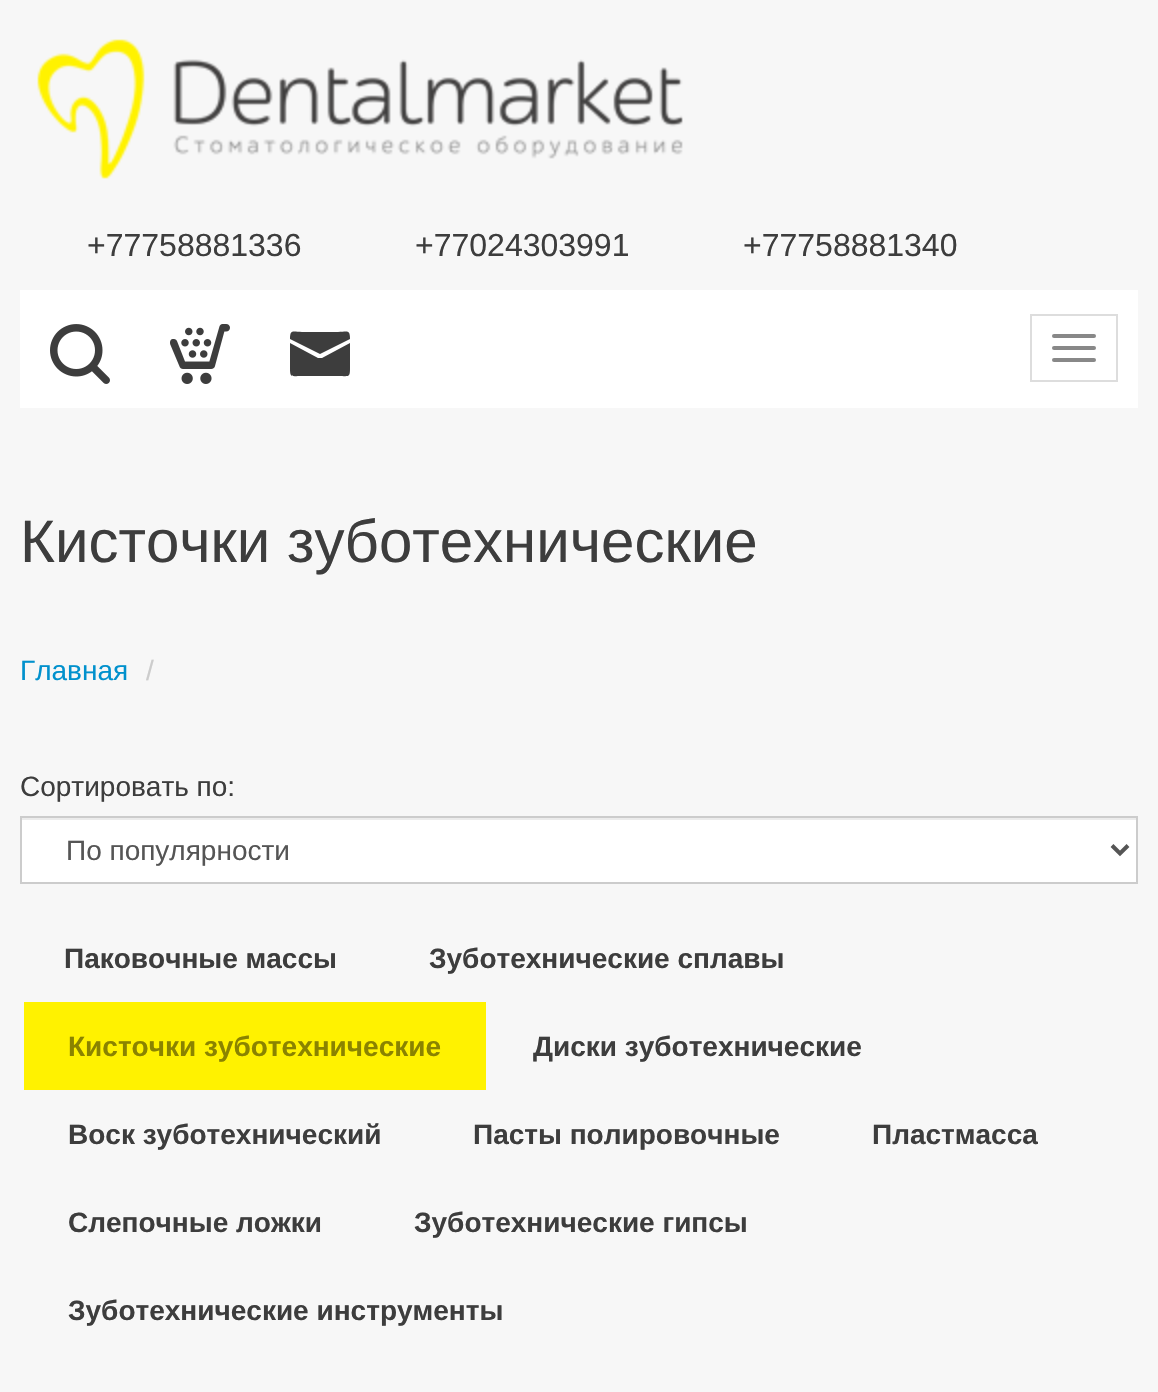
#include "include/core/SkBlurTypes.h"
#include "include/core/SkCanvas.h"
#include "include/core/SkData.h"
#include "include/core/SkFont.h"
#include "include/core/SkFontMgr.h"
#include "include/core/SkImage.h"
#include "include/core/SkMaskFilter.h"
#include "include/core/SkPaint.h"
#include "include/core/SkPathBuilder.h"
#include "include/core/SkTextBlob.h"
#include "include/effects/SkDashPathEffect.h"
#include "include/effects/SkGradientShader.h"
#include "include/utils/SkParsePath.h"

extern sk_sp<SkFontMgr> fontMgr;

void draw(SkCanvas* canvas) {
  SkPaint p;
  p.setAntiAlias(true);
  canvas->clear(SkColorSetRGB(247, 247, 247));
  canvas->drawImageRect(SkImages::DeferredFromEncodedData(SkData::MakeFromFileName("images/1.png")), SkRect::MakeLTRB(37, 39, 683, 179), SkSamplingOptions());
  p.setColor(SK_ColorWHITE);
  canvas->drawRect(SkRect::MakeLTRB(20, 290, 1138, 408), p);
  canvas->drawImageRect(SkImages::DeferredFromEncodedData(SkData::MakeFromFileName("images/2.png")), SkRect::MakeLTRB(50, 324, 110, 384), SkSamplingOptions());
  canvas->drawImageRect(SkImages::DeferredFromEncodedData(SkData::MakeFromFileName("images/3.png")), SkRect::MakeLTRB(170, 324, 230, 384), SkSamplingOptions());
  p.setColor(SkColorSetRGB(61, 61, 61));
  canvas->drawPath(SkPathBuilder().moveTo(320, 354).lineTo(290, 339).cubicTo(290, 329, 293, 332, 302, 332).lineTo(338, 332).cubicTo(347, 332, 350, 329, 350, 339).close().moveTo(318, 358).lineTo(322, 358).lineTo(350, 343).lineTo(350, 368).cubicTo(350, 378, 349, 376, 338, 376).lineTo(302, 376).cubicTo(291, 376, 290, 378, 290, 368).lineTo(290, 343).close().detach(), p);
  p.setStyle(SkPaint::kStroke_Style);
  p.setStrokeWidth(2);
  p.setColor(SkColorSetRGB(221, 221, 221));
  canvas->drawRect(SkRect::MakeLTRB(1031, 315, 1117, 381), p);
  p.setStyle(SkPaint::kFill_Style);
  p.setColor(SkColorSetRGB(136, 136, 136));
  canvas->drawRoundRect(SkRect::MakeLTRB(1052, 334, 1096, 338), 2, 2, p);
  canvas->drawRoundRect(SkRect::MakeLTRB(1052, 346, 1096, 350), 2, 2, p);
  canvas->drawRoundRect(SkRect::MakeLTRB(1052, 358, 1096, 362), 2, 2, p);
  p.setColor(SK_ColorWHITE);
  canvas->drawRect(SkRect::MakeLTRB(22, 820, 1136, 882), p);
  p.setColor(SkColorSetRGB(236, 236, 236));
  canvas->drawRect(SkRect::MakeLTRB(22, 818, 1136, 820), p);
  p.setStyle(SkPaint::kStroke_Style);
  p.setColor(SkColorSetRGB(204, 204, 204));
  canvas->drawRect(SkRect::MakeLTRB(21, 817, 1137, 883), p);
  p.setStrokeWidth(4);
  p.setColor(SkColorSetRGB(85, 85, 85));
  canvas->drawPath(SkPathBuilder().moveTo(1112, 845.5f).lineTo(1120, 853.5f).lineTo(1128, 845.5f).detach(), p);
  p.setStyle(SkPaint::kFill_Style);
  p.setColor(SkColorSetRGB(255, 242, 0));
  canvas->drawRect(SkRect::MakeLTRB(24, 1002, 486, 1090), p);
  SkFont font1(fontMgr->matchFamilyStyle("Liberation Sans", SkFontStyle::Normal()), 32);
  font1.setSubpixel(true);
  p.setColor(SkColorSetRGB(61, 61, 61));
  canvas->drawString("+77758881336", 87, 256, font1, p);
  canvas->drawString("+77024303991", 415, 256, font1, p);
  canvas->drawString("+77758881340", 743, 256, font1, p);
  SkFont font2(fontMgr->matchFamilyStyle("Liberation Sans", SkFontStyle::Normal()), 60);
  font2.setSubpixel(true);
  canvas->drawString("Кисточки зуботехнические", 20, 562, font2, p);
  SkFont font3(fontMgr->matchFamilyStyle("Liberation Sans", SkFontStyle::Normal()), 28);
  font3.setSubpixel(true);
  p.setColor(SkColorSetRGB(1, 145, 205));
  canvas->drawString("Главная", 20, 680, font3, p);
  p.setColor(SkColorSetRGB(204, 204, 204));
  canvas->drawString("/", 146, 680, font3, p);
  p.setColor(SkColorSetRGB(61, 61, 61));
  canvas->drawString("Сортировать по:", 20, 796, font3, p);
  p.setColor(SkColorSetRGB(85, 85, 85));
  canvas->drawString("По популярности", 66, 860, font3, p);
  SkFont font4(fontMgr->matchFamilyStyle("Liberation Sans", SkFontStyle::Bold()), 28);
  font4.setSubpixel(true);
  p.setColor(SkColorSetRGB(61, 61, 61));
  canvas->drawString("Паковочные массы", 64, 968, font4, p);
  canvas->drawString("Зуботехнические сплавы", 429, 968, font4, p);
  p.setColor(SkColorSetRGB(138, 131, 0));
  canvas->drawString("Кисточки зуботехнические", 68, 1056, font4, p);
  p.setColor(SkColorSetRGB(61, 61, 61));
  canvas->drawString("Диски зуботехнические", 533, 1056, font4, p);
  canvas->drawString("Воск зуботехнический", 68, 1144, font4, p);
  canvas->drawString("Пасты полировочные", 473, 1144, font4, p);
  canvas->drawString("Пластмасса", 872, 1144, font4, p);
  canvas->drawString("Слепочные ложки", 68, 1232, font4, p);
  canvas->drawString("Зуботехнические гипсы", 414, 1232, font4, p);
  canvas->drawString("Зуботехнические инструменты", 68, 1320, font4, p);
}
